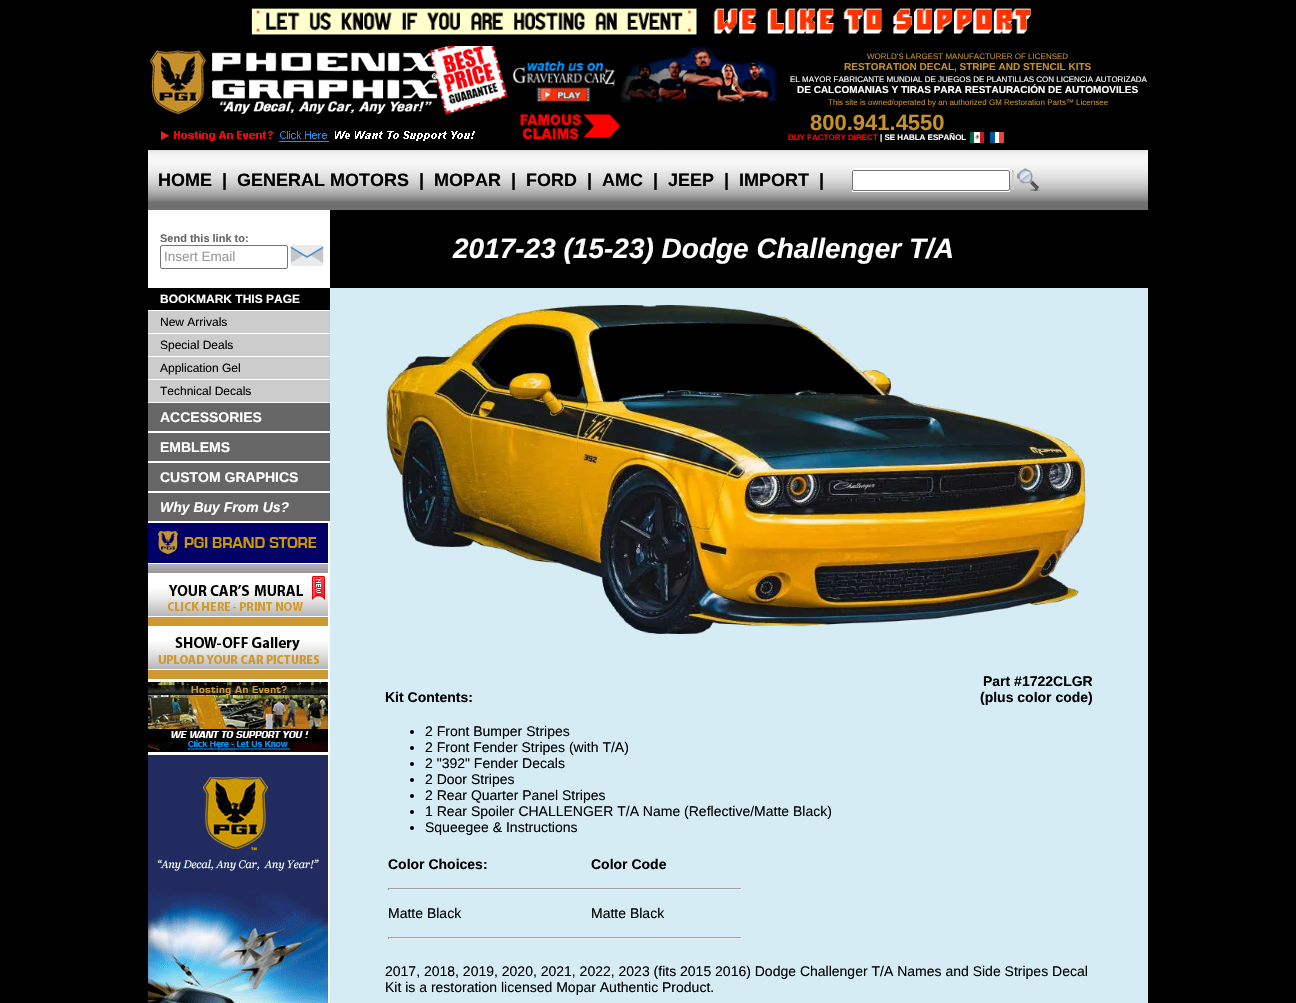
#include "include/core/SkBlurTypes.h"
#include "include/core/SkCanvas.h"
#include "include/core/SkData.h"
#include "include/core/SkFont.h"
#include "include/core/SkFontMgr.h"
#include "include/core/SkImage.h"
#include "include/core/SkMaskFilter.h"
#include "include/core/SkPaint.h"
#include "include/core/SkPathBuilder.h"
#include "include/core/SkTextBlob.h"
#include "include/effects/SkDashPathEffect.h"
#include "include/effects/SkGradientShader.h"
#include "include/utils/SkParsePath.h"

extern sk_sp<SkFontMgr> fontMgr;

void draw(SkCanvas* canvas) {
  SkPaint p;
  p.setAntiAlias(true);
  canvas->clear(SK_ColorBLACK);
  canvas->drawImageRect(SkImages::DeferredFromEncodedData(SkData::MakeFromFileName("images/1.png")), SkRect::MakeLTRB(251, 8, 1031, 35), SkSamplingOptions());
  canvas->drawImageRect(SkImages::DeferredFromEncodedData(SkData::MakeFromFileName("images/2.png")), SkRect::MakeLTRB(149, 46, 507, 115), SkSamplingOptions());
  canvas->drawImageRect(SkImages::DeferredFromEncodedData(SkData::MakeFromFileName("images/3.png")), SkRect::MakeLTRB(161, 131, 475, 142), SkSamplingOptions());
  canvas->drawImageRect(SkImages::DeferredFromEncodedData(SkData::MakeFromFileName("images/4.png")), SkRect::MakeLTRB(512, 46, 777, 103), SkSamplingOptions());
  canvas->drawImageRect(SkImages::DeferredFromEncodedData(SkData::MakeFromFileName("images/5.png")), SkRect::MakeLTRB(520, 114, 621, 140), SkSamplingOptions());
  canvas->drawImageRect(SkImages::DeferredFromEncodedData(SkData::MakeFromFileName("images/6.png")), SkRect::MakeLTRB(970, 132, 984, 143), SkSamplingOptions());
  canvas->drawImageRect(SkImages::DeferredFromEncodedData(SkData::MakeFromFileName("images/7.png")), SkRect::MakeLTRB(990, 132, 1004, 143), SkSamplingOptions());
  canvas->drawImageRect(SkImages::DeferredFromEncodedData(SkData::MakeFromFileName("images/8.png")), SkRect::MakeLTRB(148, 150, 1148, 210), SkSamplingOptions());
  p.setColor(SkColorSetRGB(221, 221, 221));
  canvas->drawRect(SkRect::MakeLTRB(148, 150, 222, 151), p);
  canvas->drawImageRect(SkImages::DeferredFromEncodedData(SkData::MakeFromFileName("images/9.png")), SkRect::MakeLTRB(148, 151, 222, 202), SkSamplingOptions());
  canvas->drawRect(SkRect::MakeLTRB(227, 150, 419, 151), p);
  canvas->drawImageRect(SkImages::DeferredFromEncodedData(SkData::MakeFromFileName("images/10.png")), SkRect::MakeLTRB(227, 151, 419, 202), SkSamplingOptions());
  canvas->drawRect(SkRect::MakeLTRB(424, 150, 511, 151), p);
  canvas->drawImageRect(SkImages::DeferredFromEncodedData(SkData::MakeFromFileName("images/11.png")), SkRect::MakeLTRB(424, 151, 511, 202), SkSamplingOptions());
  canvas->drawRect(SkRect::MakeLTRB(516, 150, 587, 151), p);
  canvas->drawImageRect(SkImages::DeferredFromEncodedData(SkData::MakeFromFileName("images/12.png")), SkRect::MakeLTRB(516, 151, 587, 202), SkSamplingOptions());
  canvas->drawRect(SkRect::MakeLTRB(592, 150, 653, 151), p);
  canvas->drawImageRect(SkImages::DeferredFromEncodedData(SkData::MakeFromFileName("images/13.png")), SkRect::MakeLTRB(592, 151, 653, 202), SkSamplingOptions());
  canvas->drawRect(SkRect::MakeLTRB(658, 150, 724, 151), p);
  canvas->drawImageRect(SkImages::DeferredFromEncodedData(SkData::MakeFromFileName("images/14.png")), SkRect::MakeLTRB(658, 151, 724, 202), SkSamplingOptions());
  canvas->drawRect(SkRect::MakeLTRB(729, 150, 819, 151), p);
  canvas->drawImageRect(SkImages::DeferredFromEncodedData(SkData::MakeFromFileName("images/15.png")), SkRect::MakeLTRB(729, 151, 819, 202), SkSamplingOptions());
  p.setColor(SK_ColorWHITE);
  canvas->drawRect(SkRect::MakeLTRB(852, 168, 1010, 192), p);
  p.setStyle(SkPaint::kStroke_Style);
  p.setStrokeWidth(1);
  p.setColor(SkColorSetRGB(118, 118, 118));
  canvas->drawRoundRect(SkRect::MakeLTRB(852.5f, 170.5f, 1009.5f, 190.5f), 1.5f, 1.5f, p);
  canvas->drawImageRect(SkImages::DeferredFromEncodedData(SkData::MakeFromFileName("images/16.png")), SkRect::MakeLTRB(1012, 168, 1040, 191), SkSamplingOptions());
  p.setStyle(SkPaint::kFill_Style);
  p.setColor(SK_ColorWHITE);
  canvas->drawRect(SkRect::MakeLTRB(148, 210, 330, 288), p);
  p.setStyle(SkPaint::kStroke_Style);
  p.setColor(SkColorSetRGB(118, 118, 118));
  canvas->drawRoundRect(SkRect::MakeLTRB(160.5f, 245.5f, 287.5f, 268.5f), 1.5f, 1.5f, p);
  canvas->drawImageRect(SkImages::DeferredFromEncodedData(SkData::MakeFromFileName("images/17.png")), SkRect::MakeLTRB(290, 245, 324, 266), SkSamplingOptions());
  p.setStyle(SkPaint::kFill_Style);
  p.setColor(SkColorSetRGB(213, 236, 244));
  canvas->drawRect(SkRect::MakeLTRB(330, 288, 1148, 1003), p);
  p.setColor(SK_ColorWHITE);
  canvas->drawRect(SkRect::MakeLTRB(148, 310, 330, 311), p);
  p.setColor(SkColorSetRGB(204, 204, 204));
  canvas->drawRect(SkRect::MakeLTRB(148, 311, 330, 333), p);
  p.setColor(SK_ColorWHITE);
  canvas->drawRect(SkRect::MakeLTRB(148, 333, 330, 334), p);
  p.setColor(SkColorSetRGB(204, 204, 204));
  canvas->drawRect(SkRect::MakeLTRB(148, 334, 330, 356), p);
  p.setColor(SK_ColorWHITE);
  canvas->drawRect(SkRect::MakeLTRB(148, 356, 330, 357), p);
  p.setColor(SkColorSetRGB(204, 204, 204));
  canvas->drawRect(SkRect::MakeLTRB(148, 357, 330, 379), p);
  p.setColor(SK_ColorWHITE);
  canvas->drawRect(SkRect::MakeLTRB(148, 379, 330, 380), p);
  p.setColor(SkColorSetRGB(204, 204, 204));
  canvas->drawRect(SkRect::MakeLTRB(148, 380, 330, 402), p);
  p.setColor(SK_ColorWHITE);
  canvas->drawRect(SkRect::MakeLTRB(148, 402, 330, 403), p);
  p.setColor(SkColorSetRGB(102, 102, 102));
  canvas->drawRect(SkRect::MakeLTRB(148, 403, 330, 431), p);
  p.setColor(SK_ColorWHITE);
  canvas->drawRect(SkRect::MakeLTRB(148, 431, 330, 433), p);
  p.setColor(SkColorSetRGB(102, 102, 102));
  canvas->drawRect(SkRect::MakeLTRB(148, 433, 330, 461), p);
  p.setColor(SK_ColorWHITE);
  canvas->drawRect(SkRect::MakeLTRB(148, 461, 330, 463), p);
  p.setColor(SkColorSetRGB(102, 102, 102));
  canvas->drawRect(SkRect::MakeLTRB(148, 463, 330, 491), p);
  p.setColor(SK_ColorWHITE);
  canvas->drawRect(SkRect::MakeLTRB(148, 491, 330, 493), p);
  p.setColor(SkColorSetRGB(102, 102, 102));
  canvas->drawRect(SkRect::MakeLTRB(148, 493, 330, 521), p);
  p.setColor(SK_ColorWHITE);
  canvas->drawRect(SkRect::MakeLTRB(148, 521, 330, 1003), p);
  canvas->drawImageRect(SkImages::DeferredFromEncodedData(SkData::MakeFromFileName("images/18.png")), SkRect::MakeLTRB(148, 523, 328, 573), SkSamplingOptions());
  canvas->drawImageRect(SkImages::DeferredFromEncodedData(SkData::MakeFromFileName("images/19.png")), SkRect::MakeLTRB(148, 576, 328, 626), SkSamplingOptions());
  canvas->drawImageRect(SkImages::DeferredFromEncodedData(SkData::MakeFromFileName("images/20.png")), SkRect::MakeLTRB(148, 637, 328, 679), SkSamplingOptions());
  canvas->drawImageRect(SkImages::DeferredFromEncodedData(SkData::MakeFromFileName("images/21.png")), SkRect::MakeLTRB(148, 682, 328, 752), SkSamplingOptions());
  canvas->drawImageRect(SkImages::DeferredFromEncodedData(SkData::MakeFromFileName("images/22.png")), SkRect::MakeLTRB(148, 755, 328, 1003), SkSamplingOptions());
  canvas->drawImageRect(SkImages::DeferredFromEncodedData(SkData::MakeFromFileName("images/23.png")), SkRect::MakeLTRB(386, 305, 1086, 634), SkSamplingOptions());
  p.setColor(SK_ColorBLACK);
  canvas->drawCircle(412, 732, 2, p);
  canvas->drawCircle(412, 748, 2, p);
  canvas->drawCircle(412, 764, 2, p);
  canvas->drawCircle(412, 780, 2, p);
  canvas->drawCircle(412, 796, 2, p);
  canvas->drawCircle(412, 812, 2, p);
  canvas->drawCircle(412, 828, 2, p);
  p.setColor(SkColorSetRGB(159, 159, 159));
  canvas->drawRect(SkRect::MakeLTRB(388, 888, 742, 889), p);
  p.setColor(SkColorSetRGB(238, 238, 238));
  canvas->drawRect(SkRect::MakeLTRB(741, 888, 742, 890), p);
  canvas->drawRect(SkRect::MakeLTRB(388, 889, 742, 890), p);
  p.setColor(SkColorSetRGB(159, 159, 159));
  canvas->drawRect(SkRect::MakeLTRB(388, 888, 389, 890), p);
  canvas->drawRect(SkRect::MakeLTRB(388, 937, 742, 938), p);
  p.setColor(SkColorSetRGB(238, 238, 238));
  canvas->drawRect(SkRect::MakeLTRB(741, 937, 742, 939), p);
  canvas->drawRect(SkRect::MakeLTRB(388, 938, 742, 939), p);
  p.setColor(SkColorSetRGB(159, 159, 159));
  canvas->drawRect(SkRect::MakeLTRB(388, 937, 389, 939), p);
  SkFont font1(fontMgr->matchFamilyStyle("Liberation Sans", SkFontStyle::Normal()), 8);
  font1.setSubpixel(true);
  p.setColor(SkColorSetRGB(197, 144, 44));
  canvas->drawString("WORLD'S LARGEST MANUFACTURER OF LICENSED", 867, 59, font1, p);
  SkFont font2(fontMgr->matchFamilyStyle("Liberation Sans", SkFontStyle::Bold()), 10);
  font2.setSubpixel(true);
  canvas->drawString("RESTORATION DECAL, STRIPE AND STENCIL KITS", 844, 70, font2, p);
  p.setColor(SK_ColorWHITE);
  canvas->drawString("EL MAYOR FABRICANTE MUNDIAL DE JUEGOS DE PLANTILLAS CON LICENCIA AUTORIZADA", 790, 82, font1, p);
  canvas->drawString("DE CALCOMANIAS Y TIRAS PARA RESTAURACIÓN DE AUTOMOVILES", 797, 93, font2, p);
  p.setColor(SkColorSetRGB(197, 144, 44));
  canvas->drawString("This site is owned/operated by an authorized GM Restoration Parts™ Licensee", 828, 105, font1, p);
  SkFont font3(fontMgr->matchFamilyStyle("Liberation Sans", SkFontStyle::Bold()), 22);
  font3.setSubpixel(true);
  canvas->drawString("800.941.4550", 810, 130, font3, p);
  SkFont font4(fontMgr->matchFamilyStyle("Liberation Sans", SkFontStyle::Bold()), 8);
  font4.setSubpixel(true);
  p.setColor(SkColorSetRGB(255, 0, 0));
  canvas->drawString("BUY FACTORY DIRECT", 788, 140, font4, p);
  p.setColor(SK_ColorWHITE);
  canvas->drawString("| SE HABLA ESPAÑOL", 880, 140, font4, p);
  SkFont font5(fontMgr->matchFamilyStyle("Liberation Sans", SkFontStyle::Bold()), 18);
  font5.setSubpixel(true);
  p.setColor(SK_ColorBLACK);
  canvas->drawString("HOME", 158, 186, font5, p);
  canvas->drawString("|", 222, 186, font5, p);
  canvas->drawString("GENERAL MOTORS", 237, 186, font5, p);
  canvas->drawString("|", 419, 186, font5, p);
  canvas->drawString("MOPAR", 434, 186, font5, p);
  canvas->drawString("|", 511, 186, font5, p);
  canvas->drawString("FORD", 526, 186, font5, p);
  canvas->drawString("|", 587, 186, font5, p);
  canvas->drawString("AMC", 602, 186, font5, p);
  canvas->drawString("|", 653, 186, font5, p);
  canvas->drawString("JEEP", 668, 186, font5, p);
  canvas->drawString("|", 724, 186, font5, p);
  canvas->drawString("IMPORT", 739, 186, font5, p);
  canvas->drawString("|", 819, 186, font5, p);
  SkFont font6(fontMgr->matchFamilyStyle("Liberation Sans", SkFontStyle::Bold()), 11);
  font6.setSubpixel(true);
  p.setColor(SkColorSetRGB(102, 102, 102));
  canvas->drawString("Send this link to:", 160, 242, font6, p);
  SkFont font7(fontMgr->matchFamilyStyle("Liberation Sans", SkFontStyle::Normal()), 13.5f);
  font7.setSubpixel(true);
  p.setColor(SkColorSetRGB(153, 153, 153));
  canvas->drawString("Insert Email", 164, 261, font7, p);
  SkFont font8(fontMgr->matchFamilyStyle("Liberation Sans", SkFontStyle::BoldItalic()), 28);
  font8.setSubpixel(true);
  p.setColor(SK_ColorWHITE);
  canvas->drawString("2017-23 (15-23) Dodge Challenger T/A", 453, 258, font8, p);
  SkFont font9(fontMgr->matchFamilyStyle("Liberation Sans", SkFontStyle::Bold()), 12);
  font9.setSubpixel(true);
  canvas->drawString("BOOKMARK THIS PAGE", 160, 303, font9, p);
  SkFont font10(fontMgr->matchFamilyStyle("Liberation Sans", SkFontStyle::Normal()), 12);
  font10.setSubpixel(true);
  p.setColor(SK_ColorBLACK);
  canvas->drawString("New Arrivals", 160, 326, font10, p);
  canvas->drawString("Special Deals", 160, 349, font10, p);
  canvas->drawString("Application Gel", 160, 372, font10, p);
  canvas->drawString("Technical Decals", 160, 395, font10, p);
  SkFont font11(fontMgr->matchFamilyStyle("Liberation Sans", SkFontStyle::Bold()), 14);
  font11.setSubpixel(true);
  p.setColor(SK_ColorWHITE);
  canvas->drawString("ACCESSORIES", 160, 422, font11, p);
  canvas->drawString("EMBLEMS", 160, 452, font11, p);
  canvas->drawString("CUSTOM GRAPHICS", 160, 482, font11, p);
  SkFont font12(fontMgr->matchFamilyStyle("Liberation Sans", SkFontStyle::BoldItalic()), 14);
  font12.setSubpixel(true);
  canvas->drawString("Why Buy From Us?", 160, 512, font12, p);
  p.setColor(SK_ColorBLACK);
  canvas->drawString("Kit Contents:", 385, 702, font11, p);
  canvas->drawString("Part #1722CLGR", 983, 686, font11, p);
  canvas->drawString("(plus color code)", 980, 702, font11, p);
  SkFont font13(fontMgr->matchFamilyStyle("Liberation Sans", SkFontStyle::Normal()), 14);
  font13.setSubpixel(true);
  canvas->drawString("2 Front Bumper Stripes", 425, 736, font13, p);
  canvas->drawString("2 Front Fender Stripes (with T/A)", 425, 752, font13, p);
  canvas->drawString("2 \"392\" Fender Decals", 425, 768, font13, p);
  canvas->drawString("2 Door Stripes", 425, 784, font13, p);
  canvas->drawString("2 Rear Quarter Panel Stripes", 425, 800, font13, p);
  canvas->drawString("1 Rear Spoiler CHALLENGER T/A Name (Reflective/Matte Black)", 425, 816, font13, p);
  canvas->drawString("Squeegee & Instructions", 425, 832, font13, p);
  canvas->drawString("Color Choices:", 388, 869, font11, p);
  canvas->drawString("Color Code", 591, 869, font11, p);
  canvas->drawString("Matte Black", 388, 918, font13, p);
  canvas->drawString("Matte Black", 591, 918, font13, p);
  canvas->drawString("2017, 2018, 2019, 2020, 2021, 2022, 2023 (fits 2015 2016) Dodge Challenger T/A Names and Side Stripes Decal", 385, 976, font13, p);
  canvas->drawString("Kit is a restoration licensed Mopar Authentic Product.", 385, 992, font13, p);
}
